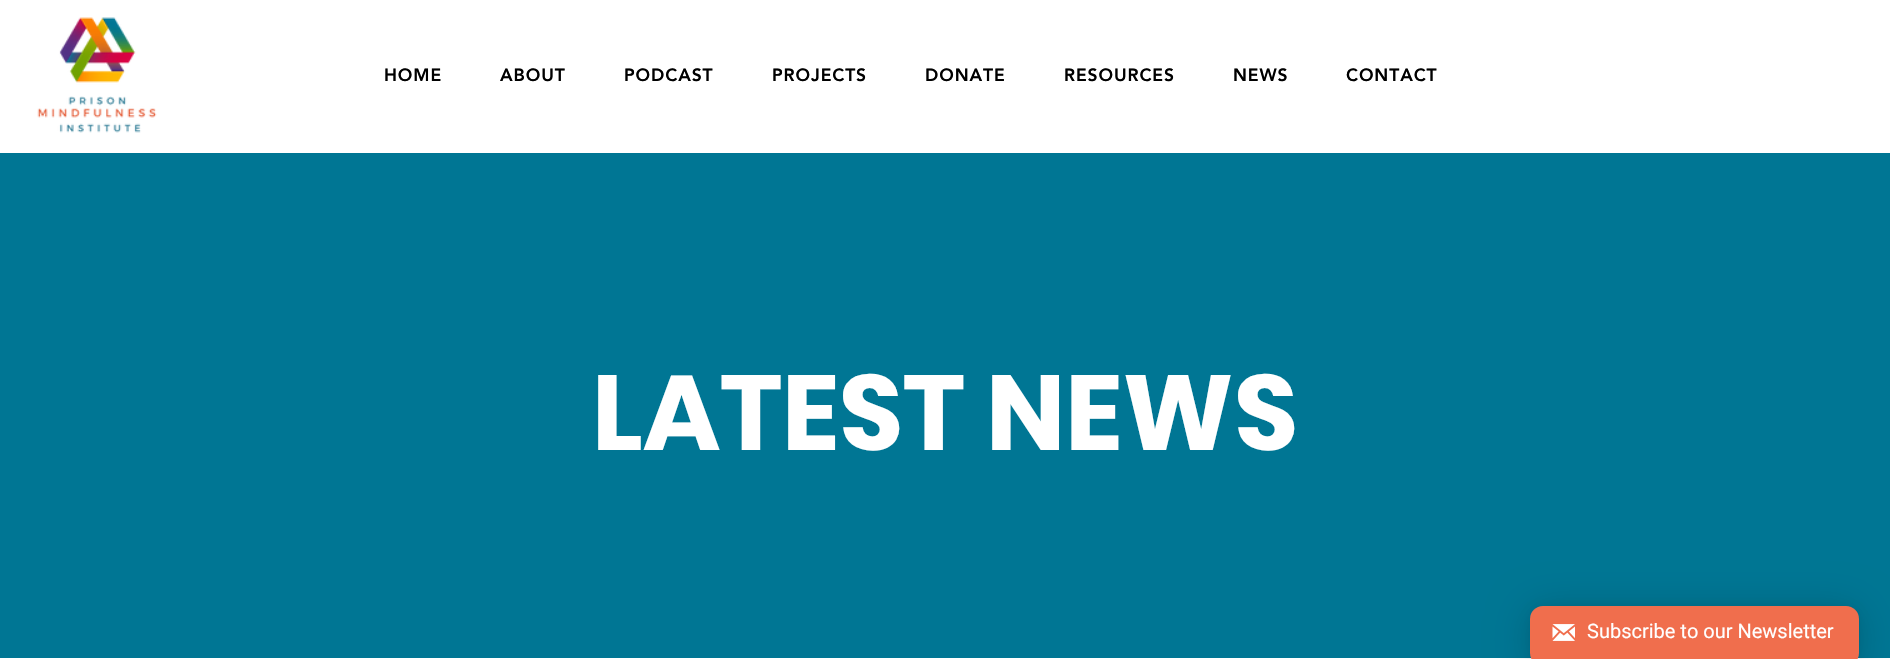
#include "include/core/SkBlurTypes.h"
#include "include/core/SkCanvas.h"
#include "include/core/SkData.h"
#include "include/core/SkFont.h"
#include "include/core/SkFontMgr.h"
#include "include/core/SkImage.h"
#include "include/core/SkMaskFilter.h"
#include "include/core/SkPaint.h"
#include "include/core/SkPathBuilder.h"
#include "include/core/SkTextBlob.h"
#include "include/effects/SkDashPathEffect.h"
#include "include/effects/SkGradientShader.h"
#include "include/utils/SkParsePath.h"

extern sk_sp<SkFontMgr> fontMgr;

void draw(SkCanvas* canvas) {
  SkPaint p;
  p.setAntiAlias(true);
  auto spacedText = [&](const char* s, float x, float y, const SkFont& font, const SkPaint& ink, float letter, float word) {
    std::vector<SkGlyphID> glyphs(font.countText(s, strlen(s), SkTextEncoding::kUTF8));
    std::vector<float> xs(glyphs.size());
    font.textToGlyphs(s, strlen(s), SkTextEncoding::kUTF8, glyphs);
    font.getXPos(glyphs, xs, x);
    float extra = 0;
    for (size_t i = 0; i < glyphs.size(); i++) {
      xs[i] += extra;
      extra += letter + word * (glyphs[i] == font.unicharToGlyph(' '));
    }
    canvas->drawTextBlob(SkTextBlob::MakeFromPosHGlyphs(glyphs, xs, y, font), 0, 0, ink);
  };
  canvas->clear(SK_ColorWHITE);
  canvas->drawImageRect(SkImages::DeferredFromEncodedData(SkData::MakeFromFileName("images/1.png")), SkRect::MakeLTRB(37, 17, 157, 133), SkSamplingOptions());
  p.setColor(SkColorSetRGB(0, 118, 148));
  canvas->drawRect(SkRect::MakeLTRB(0, 153, 1890, 658), p);
  p.setColor(SkColorSetARGB(41, 0, 0, 0));
  p.setMaskFilter(SkMaskFilter::MakeBlur(kNormal_SkBlurStyle, 20));
  canvas->drawRoundRect(SkRect::MakeLTRB(1530, 609, 1859, 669), 13, 13, p);
  p.setMaskFilter(nullptr);
  p.setColor(SkColorSetARGB(15, 0, 0, 0));
  p.setMaskFilter(SkMaskFilter::MakeBlur(kNormal_SkBlurStyle, 4));
  canvas->drawRoundRect(SkRect::MakeLTRB(1530, 608, 1859, 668), 13, 13, p);
  p.setMaskFilter(nullptr);
  p.setColor(SkColorSetRGB(240, 110, 77));
  canvas->drawRoundRect(SkRect::MakeLTRB(1530, 606, 1859, 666), 13, 13, p);
  canvas->drawImageRect(SkImages::DeferredFromEncodedData(SkData::MakeFromFileName("images/2.png")), SkRect::MakeLTRB(1552, 624, 1575, 641), SkSamplingOptions());
  SkFont font1(fontMgr->matchFamilyStyle("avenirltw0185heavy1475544", SkFontStyle(900, SkFontStyle::kNormal_Width, SkFontStyle::kUpright_Slant)), 17.5f);
  font1.setSubpixel(true);
  p.setColor(SK_ColorBLACK);
  spacedText("HOME", 384, 81, font1, p, 0.9f, 0);
  spacedText("ABOUT", 500, 81, font1, p, 0.9f, 0);
  spacedText("PODCAST", 624, 81, font1, p, 0.9f, 0);
  spacedText("PROJECTS", 772, 81, font1, p, 0.9f, 0);
  spacedText("DONATE", 925, 81, font1, p, 0.9f, 0);
  spacedText("RESOURCES", 1064, 81, font1, p, 0.9f, 0);
  spacedText("NEWS", 1233, 81, font1, p, 0.9f, 0);
  spacedText("CONTACT", 1346, 81, font1, p, 0.9f, 0);
  SkFont font2(fontMgr->matchFamilyStyle("Poppins", SkFontStyle::Bold()), 106.25f);
  font2.setSubpixel(true);
  p.setColor(SK_ColorWHITE);
  canvas->drawString("LATEST NEWS", 592, 450, font2, p);
  SkFont font3(fontMgr->matchFamilyStyle("Roboto", SkFontStyle::Normal()), 20);
  font3.setSubpixel(true);
  canvas->drawString("Subscribe to our Newsletter", 1587, 638, font3, p);
}
